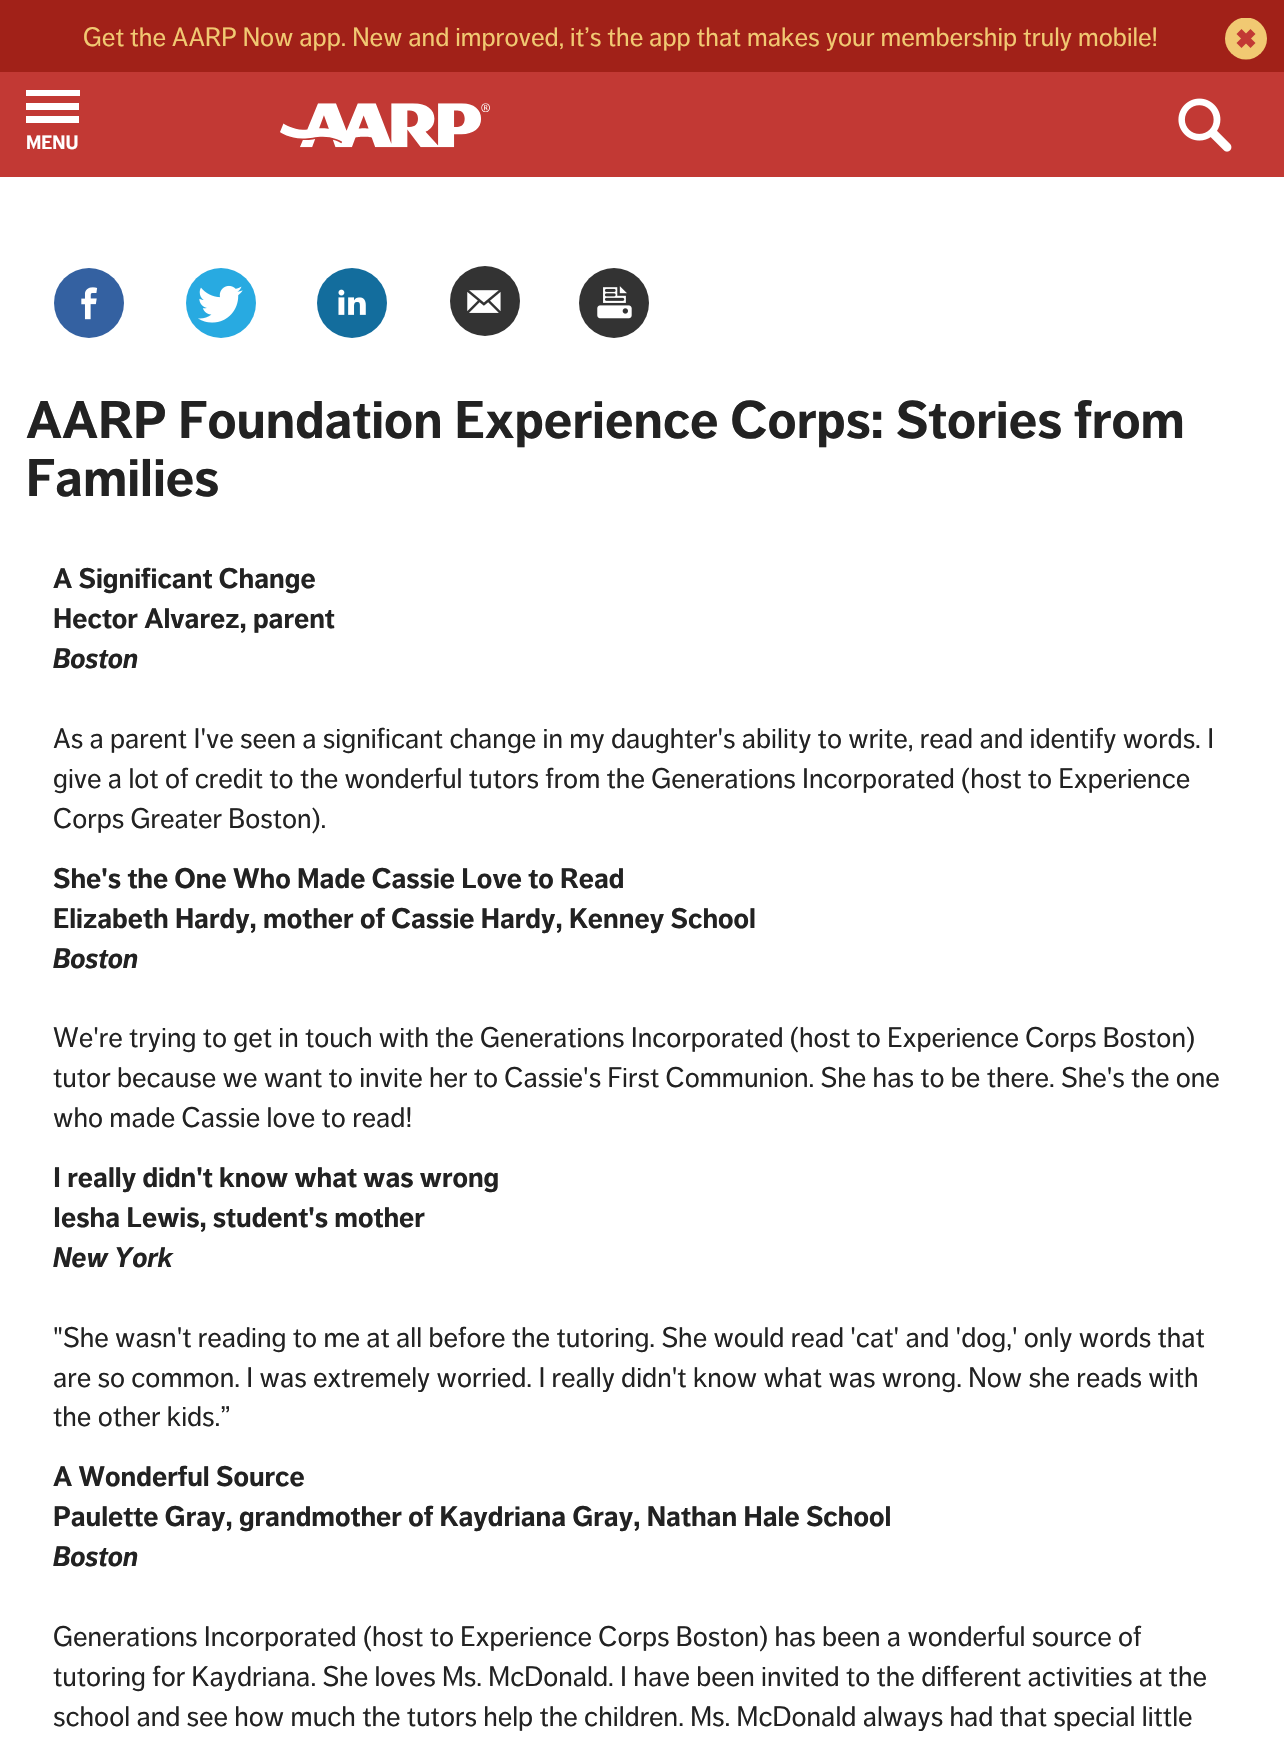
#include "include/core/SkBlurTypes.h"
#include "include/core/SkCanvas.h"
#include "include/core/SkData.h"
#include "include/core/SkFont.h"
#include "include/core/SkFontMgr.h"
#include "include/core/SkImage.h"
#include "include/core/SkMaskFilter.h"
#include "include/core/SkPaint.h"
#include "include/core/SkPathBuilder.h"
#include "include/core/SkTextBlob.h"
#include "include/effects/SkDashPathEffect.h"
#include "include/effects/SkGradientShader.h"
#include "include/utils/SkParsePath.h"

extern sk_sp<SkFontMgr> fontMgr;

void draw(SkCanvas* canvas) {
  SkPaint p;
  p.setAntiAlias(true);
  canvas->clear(SK_ColorWHITE);
  p.setColor(SkColorSetRGB(161, 33, 24));
  canvas->drawRect(SkRect::MakeLTRB(0, 0, 1284, 72), p);
  canvas->save();
  canvas->clipRect(SkRect::MakeLTRB(1225, 18, 1267, 60));
  p.setColor(SkColorSetRGB(241, 201, 114));
  canvas->drawCircle(1246, 38.5f, 21, p);
  canvas->restore();
  p.setColor(SkColorSetRGB(194, 57, 52));
  canvas->drawPath(SkPathBuilder().moveTo(1250.5f, 29).lineTo(1255.5f, 34).lineTo(1241.5f, 48).lineTo(1236.5f, 43).close().detach(), p);
  canvas->drawPath(SkPathBuilder().moveTo(1236.5f, 34).lineTo(1241.5f, 29).lineTo(1255.5f, 43).lineTo(1250.5f, 48).close().detach(), p);
  canvas->drawRect(SkRect::MakeLTRB(0, 72, 1284, 177), p);
  p.setColor(SK_ColorWHITE);
  canvas->drawPath(SkPathBuilder().moveTo(80, 90).lineTo(80, 96).lineTo(26, 96).lineTo(26, 90).close().moveTo(26, 110).lineTo(79, 110).lineTo(79, 103).lineTo(26, 103).close().moveTo(26, 123).lineTo(79, 123).lineTo(79, 116).lineTo(26, 116).close().detach(), p);
  canvas->drawImageRect(SkImages::DeferredFromEncodedData(SkData::MakeFromFileName("images/1.png")), SkRect::MakeLTRB(280, 103, 490, 148), SkSamplingOptions());
  canvas->drawImageRect(SkImages::DeferredFromEncodedData(SkData::MakeFromFileName("images/2.png")), SkRect::MakeLTRB(1178, 98, 1232, 152), SkSamplingOptions());
  p.setColor(SkColorSetRGB(52, 97, 161));
  canvas->drawCircle(89, 303, 35, p);
  canvas->drawImageRect(SkImages::DeferredFromEncodedData(SkData::MakeFromFileName("images/3.png")), SkRect::MakeLTRB(81, 287, 98, 320), SkSamplingOptions());
  p.setColor(SkColorSetRGB(40, 170, 225));
  canvas->drawCircle(221, 303, 35, p);
  canvas->drawImageRect(SkImages::DeferredFromEncodedData(SkData::MakeFromFileName("images/4.png")), SkRect::MakeLTRB(198, 285, 243, 323), SkSamplingOptions());
  p.setColor(SkColorSetRGB(19, 109, 157));
  canvas->drawCircle(352, 303, 35, p);
  canvas->drawImageRect(SkImages::DeferredFromEncodedData(SkData::MakeFromFileName("images/5.png")), SkRect::MakeLTRB(338, 289, 366, 315), SkSamplingOptions());
  p.setColor(SkColorSetRGB(51, 51, 51));
  canvas->drawCircle(485, 301, 35, p);
  canvas->drawImageRect(SkImages::DeferredFromEncodedData(SkData::MakeFromFileName("images/6.png")), SkRect::MakeLTRB(467, 290, 501, 313), SkSamplingOptions());
  canvas->drawCircle(614, 303, 35, p);
  canvas->drawImageRect(SkImages::DeferredFromEncodedData(SkData::MakeFromFileName("images/7.png")), SkRect::MakeLTRB(597, 286, 632, 319), SkSamplingOptions());
  SkFont font1(fontMgr->matchFamilyStyle("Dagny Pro", SkFontStyle::Normal()), 26.25f);
  font1.setSubpixel(true);
  p.setColor(SkColorSetRGB(241, 201, 114));
  canvas->drawString("Get the AARP Now app. New and improved, it’s the app that makes your membership truly mobile!", 83, 46, font1, p);
  SkFont font2(fontMgr->matchFamilyStyle("Dagny Pro", SkFontStyle::Bold()), 19);
  font2.setSubpixel(true);
  p.setColor(SK_ColorWHITE);
  canvas->drawString("MENU", 26, 149, font2, p);
  SkFont font3(fontMgr->matchFamilyStyle("Dagny Pro", SkFontStyle::Bold()), 52.5f);
  font3.setSubpixel(true);
  p.setColor(SkColorSetRGB(34, 34, 34));
  canvas->drawString("AARP Foundation Experience Corps: Stories from", 26, 438, font3, p);
  canvas->drawString("Families", 26, 496, font3, p);
  SkFont font4(fontMgr->matchFamilyStyle("Dagny Pro", SkFontStyle::Bold()), 28);
  font4.setSubpixel(true);
  canvas->drawString("A Significant Change", 53, 588, font4, p);
  canvas->drawString("Hector Alvarez, parent", 53, 628, font4, p);
  SkFont font5(fontMgr->matchFamilyStyle("Dagny Pro", SkFontStyle::BoldItalic()), 28);
  font5.setSubpixel(true);
  canvas->drawString("Boston", 53, 668, font5, p);
  SkFont font6(fontMgr->matchFamilyStyle("Dagny Pro", SkFontStyle::Normal()), 28);
  font6.setSubpixel(true);
  canvas->drawString("As a parent I've seen a significant change in my daughter's ability to write, read and identify words. I", 53, 748, font6, p);
  canvas->drawString("give a lot of credit to the wonderful tutors from the Generations Incorporated (host to Experience", 53, 788, font6, p);
  canvas->drawString("Corps Greater Boston).", 53, 828, font6, p);
  canvas->drawString("She's the One Who Made Cassie Love to Read", 53, 888, font4, p);
  canvas->drawString("Elizabeth Hardy, mother of Cassie Hardy, Kenney School", 53, 928, font4, p);
  canvas->drawString("Boston", 53, 968, font5, p);
  canvas->drawString("We're trying to get in touch with the Generations Incorporated (host to Experience Corps Boston)", 53, 1047, font6, p);
  canvas->drawString("tutor because we want to invite her to Cassie's First Communion. She has to be there. She's the one", 53, 1087, font6, p);
  canvas->drawString("who made Cassie love to read!", 53, 1127, font6, p);
  canvas->drawString("I really didn't know what was wrong", 53, 1187, font4, p);
  canvas->drawString("Iesha Lewis, student's mother", 53, 1227, font4, p);
  canvas->drawString("New York", 53, 1267, font5, p);
  canvas->drawString("\"She wasn't reading to me at all before the tutoring. She would read 'cat' and 'dog,' only words that", 53, 1347, font6, p);
  canvas->drawString("are so common. I was extremely worried. I really didn't know what was wrong. Now she reads with", 53, 1387, font6, p);
  canvas->drawString("the other kids.”", 53, 1426, font6, p);
  canvas->drawString("A Wonderful Source", 53, 1486, font4, p);
  canvas->drawString("Paulette Gray, grandmother of Kaydriana Gray, Nathan Hale School", 53, 1526, font4, p);
  canvas->drawString("Boston", 53, 1566, font5, p);
  canvas->drawString("Generations Incorporated (host to Experience Corps Boston) has been a wonderful source of", 53, 1646, font6, p);
  canvas->drawString("tutoring for Kaydriana. She loves Ms. McDonald. I have been invited to the different activities at the", 53, 1686, font6, p);
  canvas->drawString("school and see how much the tutors help the children. Ms. McDonald always had that special little", 53, 1726, font6, p);
}
